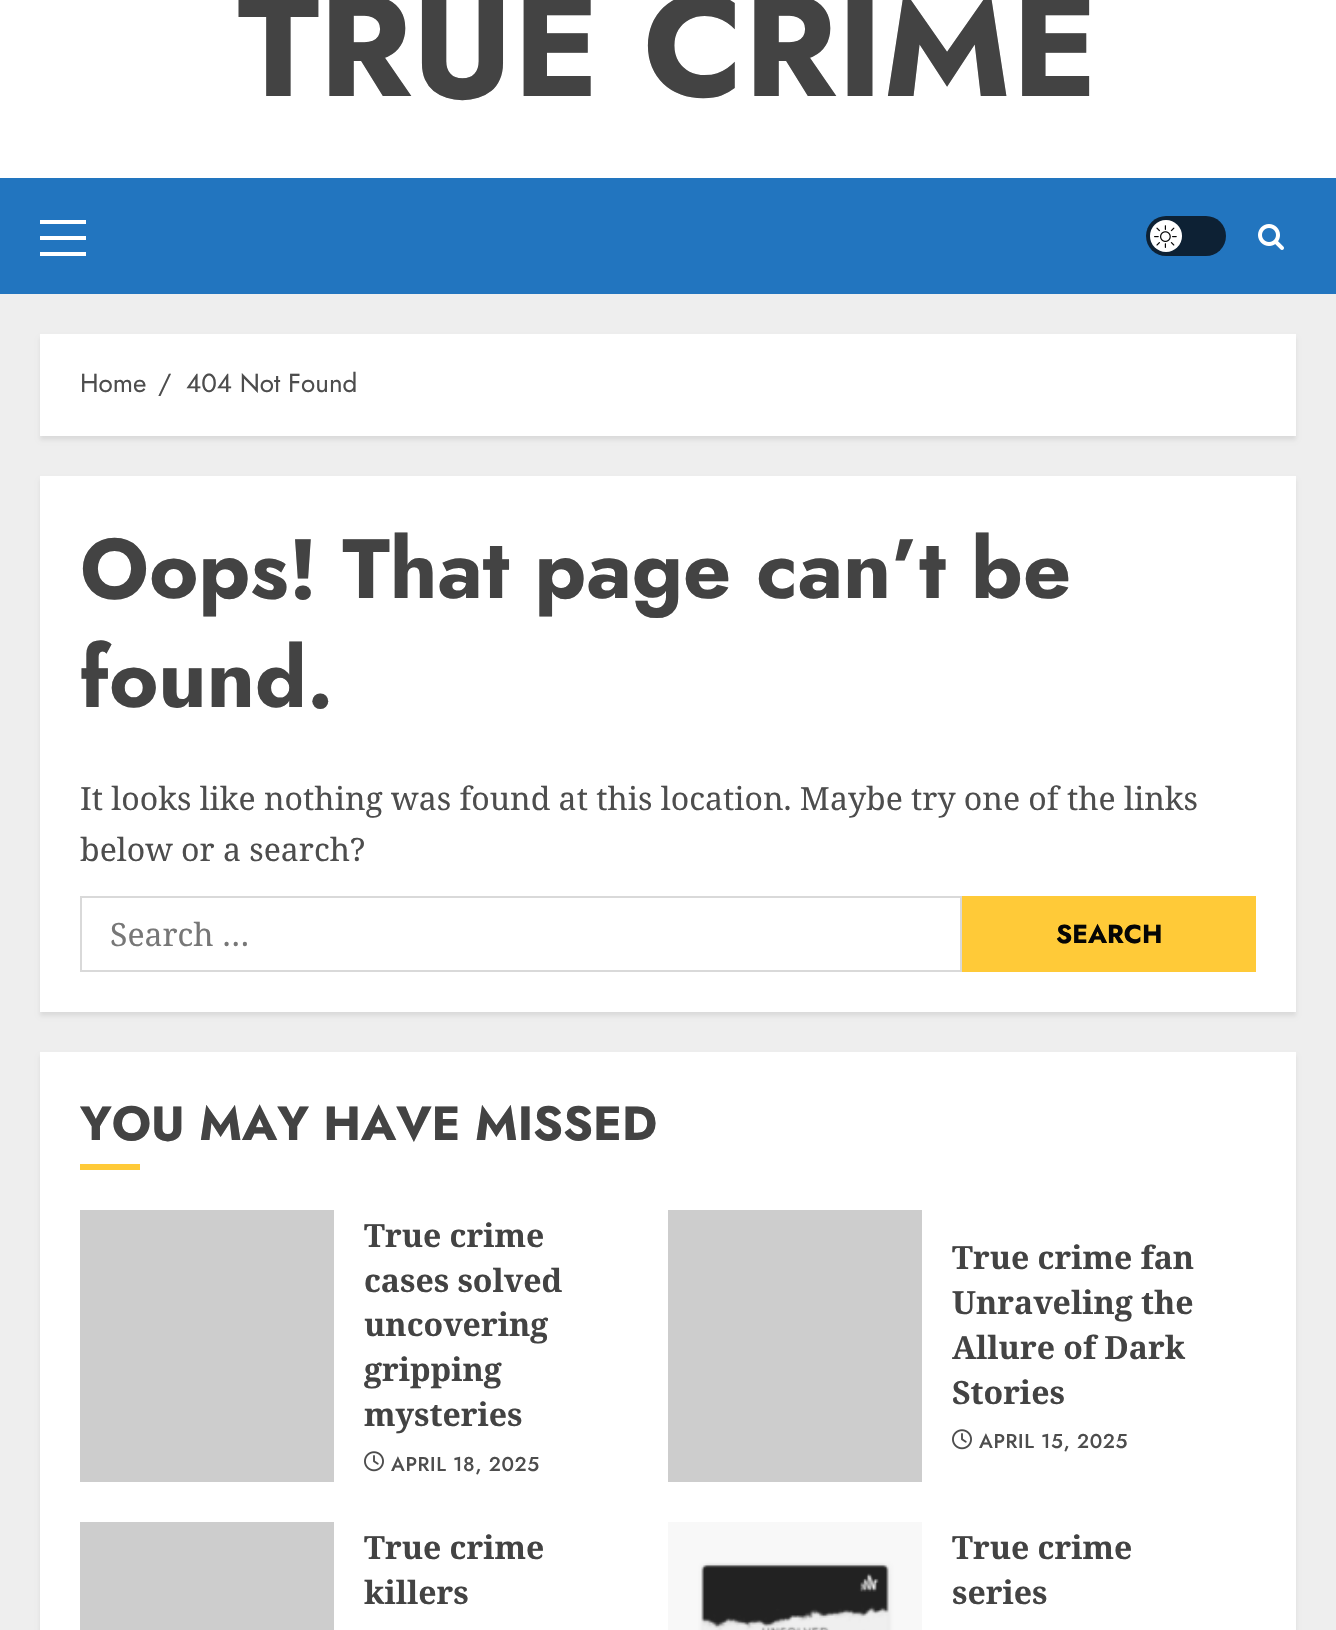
#include "include/core/SkBlurTypes.h"
#include "include/core/SkCanvas.h"
#include "include/core/SkData.h"
#include "include/core/SkFont.h"
#include "include/core/SkFontMgr.h"
#include "include/core/SkImage.h"
#include "include/core/SkMaskFilter.h"
#include "include/core/SkPaint.h"
#include "include/core/SkPathBuilder.h"
#include "include/core/SkTextBlob.h"
#include "include/effects/SkDashPathEffect.h"
#include "include/effects/SkGradientShader.h"
#include "include/utils/SkParsePath.h"

extern sk_sp<SkFontMgr> fontMgr;

void draw(SkCanvas* canvas) {
  SkPaint p;
  p.setAntiAlias(true);
  auto spacedText = [&](const char* s, float x, float y, const SkFont& font, const SkPaint& ink, float letter, float word) {
    std::vector<SkGlyphID> glyphs(font.countText(s, strlen(s), SkTextEncoding::kUTF8));
    std::vector<float> xs(glyphs.size());
    font.textToGlyphs(s, strlen(s), SkTextEncoding::kUTF8, glyphs);
    font.getXPos(glyphs, xs, x);
    float extra = 0;
    for (size_t i = 0; i < glyphs.size(); i++) {
      xs[i] += extra;
      extra += letter + word * (glyphs[i] == font.unicharToGlyph(' '));
    }
    canvas->drawTextBlob(SkTextBlob::MakeFromPosHGlyphs(glyphs, xs, y, font), 0, 0, ink);
  };
  canvas->clear(SkColorSetRGB(238, 238, 238));
  p.setColor(SK_ColorWHITE);
  canvas->drawRect(SkRect::MakeLTRB(0, 0, 1336, 178), p);
  p.setColor(SkColorSetRGB(34, 117, 191));
  canvas->drawRect(SkRect::MakeLTRB(0, 178, 1336, 294), p);
  p.setColor(SK_ColorWHITE);
  canvas->drawRect(SkRect::MakeLTRB(40, 236, 86, 240), p);
  canvas->drawRect(SkRect::MakeLTRB(40, 220, 86, 224), p);
  canvas->drawRect(SkRect::MakeLTRB(40, 252, 86, 256), p);
  p.setColor(SkColorSetRGB(13, 33, 52));
  canvas->drawRoundRect(SkRect::MakeLTRB(1146, 216, 1226, 256), 20, 20, p);
  p.setColor(SK_ColorWHITE);
  canvas->drawCircle(1166, 236, 16, p);
  canvas->drawImageRect(SkImages::DeferredFromEncodedData(SkData::MakeFromFileName("images/1.png")), SkRect::MakeLTRB(1154, 225, 1177, 248), SkSamplingOptions());
  canvas->drawImageRect(SkImages::DeferredFromEncodedData(SkData::MakeFromFileName("images/2.png")), SkRect::MakeLTRB(1258, 224, 1284, 250), SkSamplingOptions());
  p.setColor(SkColorSetARGB(20, 5, 5, 5));
  p.setMaskFilter(SkMaskFilter::MakeBlur(kNormal_SkBlurStyle, 2));
  canvas->drawRect(SkRect::MakeLTRB(40, 338, 1296, 440), p);
  p.setMaskFilter(nullptr);
  p.setColor(SK_ColorWHITE);
  canvas->drawRect(SkRect::MakeLTRB(40, 334, 1296, 436), p);
  p.setColor(SkColorSetARGB(20, 5, 5, 5));
  p.setMaskFilter(SkMaskFilter::MakeBlur(kNormal_SkBlurStyle, 2));
  canvas->drawRect(SkRect::MakeLTRB(40, 480, 1296, 1016), p);
  p.setMaskFilter(nullptr);
  p.setColor(SK_ColorWHITE);
  canvas->drawRect(SkRect::MakeLTRB(40, 476, 1296, 1012), p);
  p.setStyle(SkPaint::kStroke_Style);
  p.setStrokeWidth(2);
  p.setColor(SkColorSetRGB(217, 217, 217));
  canvas->drawRect(SkRect::MakeLTRB(81, 897, 961, 971), p);
  p.setStyle(SkPaint::kFill_Style);
  p.setColor(SkColorSetRGB(255, 202, 56));
  canvas->drawRect(SkRect::MakeLTRB(962, 896, 1256, 972), p);
  p.setColor(SkColorSetARGB(20, 5, 5, 5));
  p.setMaskFilter(SkMaskFilter::MakeBlur(kNormal_SkBlurStyle, 2));
  canvas->drawRect(SkRect::MakeLTRB(40, 1056, 1296, 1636), p);
  p.setMaskFilter(nullptr);
  p.setColor(SK_ColorWHITE);
  canvas->drawRect(SkRect::MakeLTRB(40, 1052, 1296, 1630), p);
  p.setColor(SkColorSetRGB(255, 202, 56));
  canvas->drawRect(SkRect::MakeLTRB(80, 1164, 140, 1170), p);
  p.setColor(SkColorSetRGB(205, 205, 205));
  canvas->drawRect(SkRect::MakeLTRB(80, 1210, 334, 1482), p);
  canvas->drawImageRect(SkImages::DeferredFromEncodedData(SkData::MakeFromFileName("images/3.png")), SkRect::MakeLTRB(364, 1451, 384, 1472), SkSamplingOptions());
  canvas->drawRect(SkRect::MakeLTRB(668, 1210, 922, 1482), p);
  canvas->drawImageRect(SkImages::DeferredFromEncodedData(SkData::MakeFromFileName("images/3.png")), SkRect::MakeLTRB(952, 1429, 972, 1450), SkSamplingOptions());
  canvas->drawRect(SkRect::MakeLTRB(80, 1522, 334, 1630), p);
  canvas->drawImageRect(SkImages::DeferredFromEncodedData(SkData::MakeFromFileName("images/4.png")), SkRect::MakeLTRB(668, 1522, 922, 1630), SkSamplingOptions());
  SkFont font1(fontMgr->matchFamilyStyle("Jost", SkFontStyle::Bold()), 144);
  font1.setSubpixel(true);
  p.setColor(SkColorSetRGB(67, 67, 67));
  canvas->drawString("TRUE CRIME", 238, 96, font1, p);
  SkFont font2(fontMgr->matchFamilyStyle("Jost", SkFontStyle::Normal()), 26);
  font2.setSubpixel(true);
  p.setColor(SkColorSetRGB(77, 77, 77));
  canvas->drawString("Home", 80, 392, font2, p);
  canvas->drawString("/", 158, 392, font2, p);
  canvas->drawString("404 Not Found", 186, 392, font2, p);
  SkFont font3(fontMgr->matchFamilyStyle("Jost", SkFontStyle::Bold()), 84);
  font3.setSubpixel(true);
  p.setColor(SkColorSetRGB(67, 67, 67));
  canvas->drawString("Oops! That page can’t be", 80, 598, font3, p);
  canvas->drawString("found.", 80, 707, font3, p);
  SkFont font4(fontMgr->matchFamilyStyle("Noto Serif", SkFontStyle::Normal()), 32);
  font4.setSubpixel(true);
  p.setColor(SkColorSetRGB(77, 77, 77));
  canvas->drawString("It looks like nothing was found at this location. Maybe try one of the links", 80, 810, font4, p);
  canvas->drawString("below or a search?", 80, 861, font4, p);
  p.setColor(SkColorSetRGB(119, 119, 119));
  canvas->drawString("Search …", 110, 946, font4, p);
  SkFont font5(fontMgr->matchFamilyStyle("Jost", SkFontStyle::Bold()), 26);
  font5.setSubpixel(true);
  p.setColor(SkColorSetRGB(5, 5, 5));
  canvas->drawString("SEARCH", 1056, 943, font5, p);
  SkFont font6(fontMgr->matchFamilyStyle("Jost", SkFontStyle::Bold()), 48);
  font6.setSubpixel(true);
  p.setColor(SkColorSetRGB(67, 67, 67));
  canvas->drawString("YOU MAY HAVE MISSED", 80, 1140, font6, p);
  SkFont font7(fontMgr->matchFamilyStyle("Noto Serif", SkFontStyle::Bold()), 32);
  font7.setSubpixel(true);
  canvas->drawString("True crime", 364, 1247, font7, p);
  canvas->drawString("cases solved", 364, 1292, font7, p);
  canvas->drawString("uncovering", 364, 1336, font7, p);
  canvas->drawString("gripping", 364, 1381, font7, p);
  canvas->drawString("mysteries", 364, 1426, font7, p);
  SkFont font8(fontMgr->matchFamilyStyle("Jost", SkFontStyle(500, SkFontStyle::kNormal_Width, SkFontStyle::kUpright_Slant)), 20);
  font8.setSubpixel(true);
  p.setColor(SkColorSetRGB(77, 77, 77));
  spacedText("APRIL 18, 2025", 391, 1471, font8, p, 0.6f, 0);
  p.setColor(SkColorSetRGB(67, 67, 67));
  canvas->drawString("True crime fan", 952, 1269, font7, p);
  canvas->drawString("Unraveling the", 952, 1314, font7, p);
  canvas->drawString("Allure of Dark", 952, 1359, font7, p);
  canvas->drawString("Stories", 952, 1404, font7, p);
  p.setColor(SkColorSetRGB(77, 77, 77));
  spacedText("APRIL 15, 2025", 979, 1448, font8, p, 0.6f, 0);
  p.setColor(SkColorSetRGB(67, 67, 67));
  canvas->drawString("True crime", 364, 1559, font7, p);
  canvas->drawString("killers", 364, 1604, font7, p);
  canvas->drawString("True crime", 952, 1559, font7, p);
  canvas->drawString("series", 952, 1604, font7, p);
}
